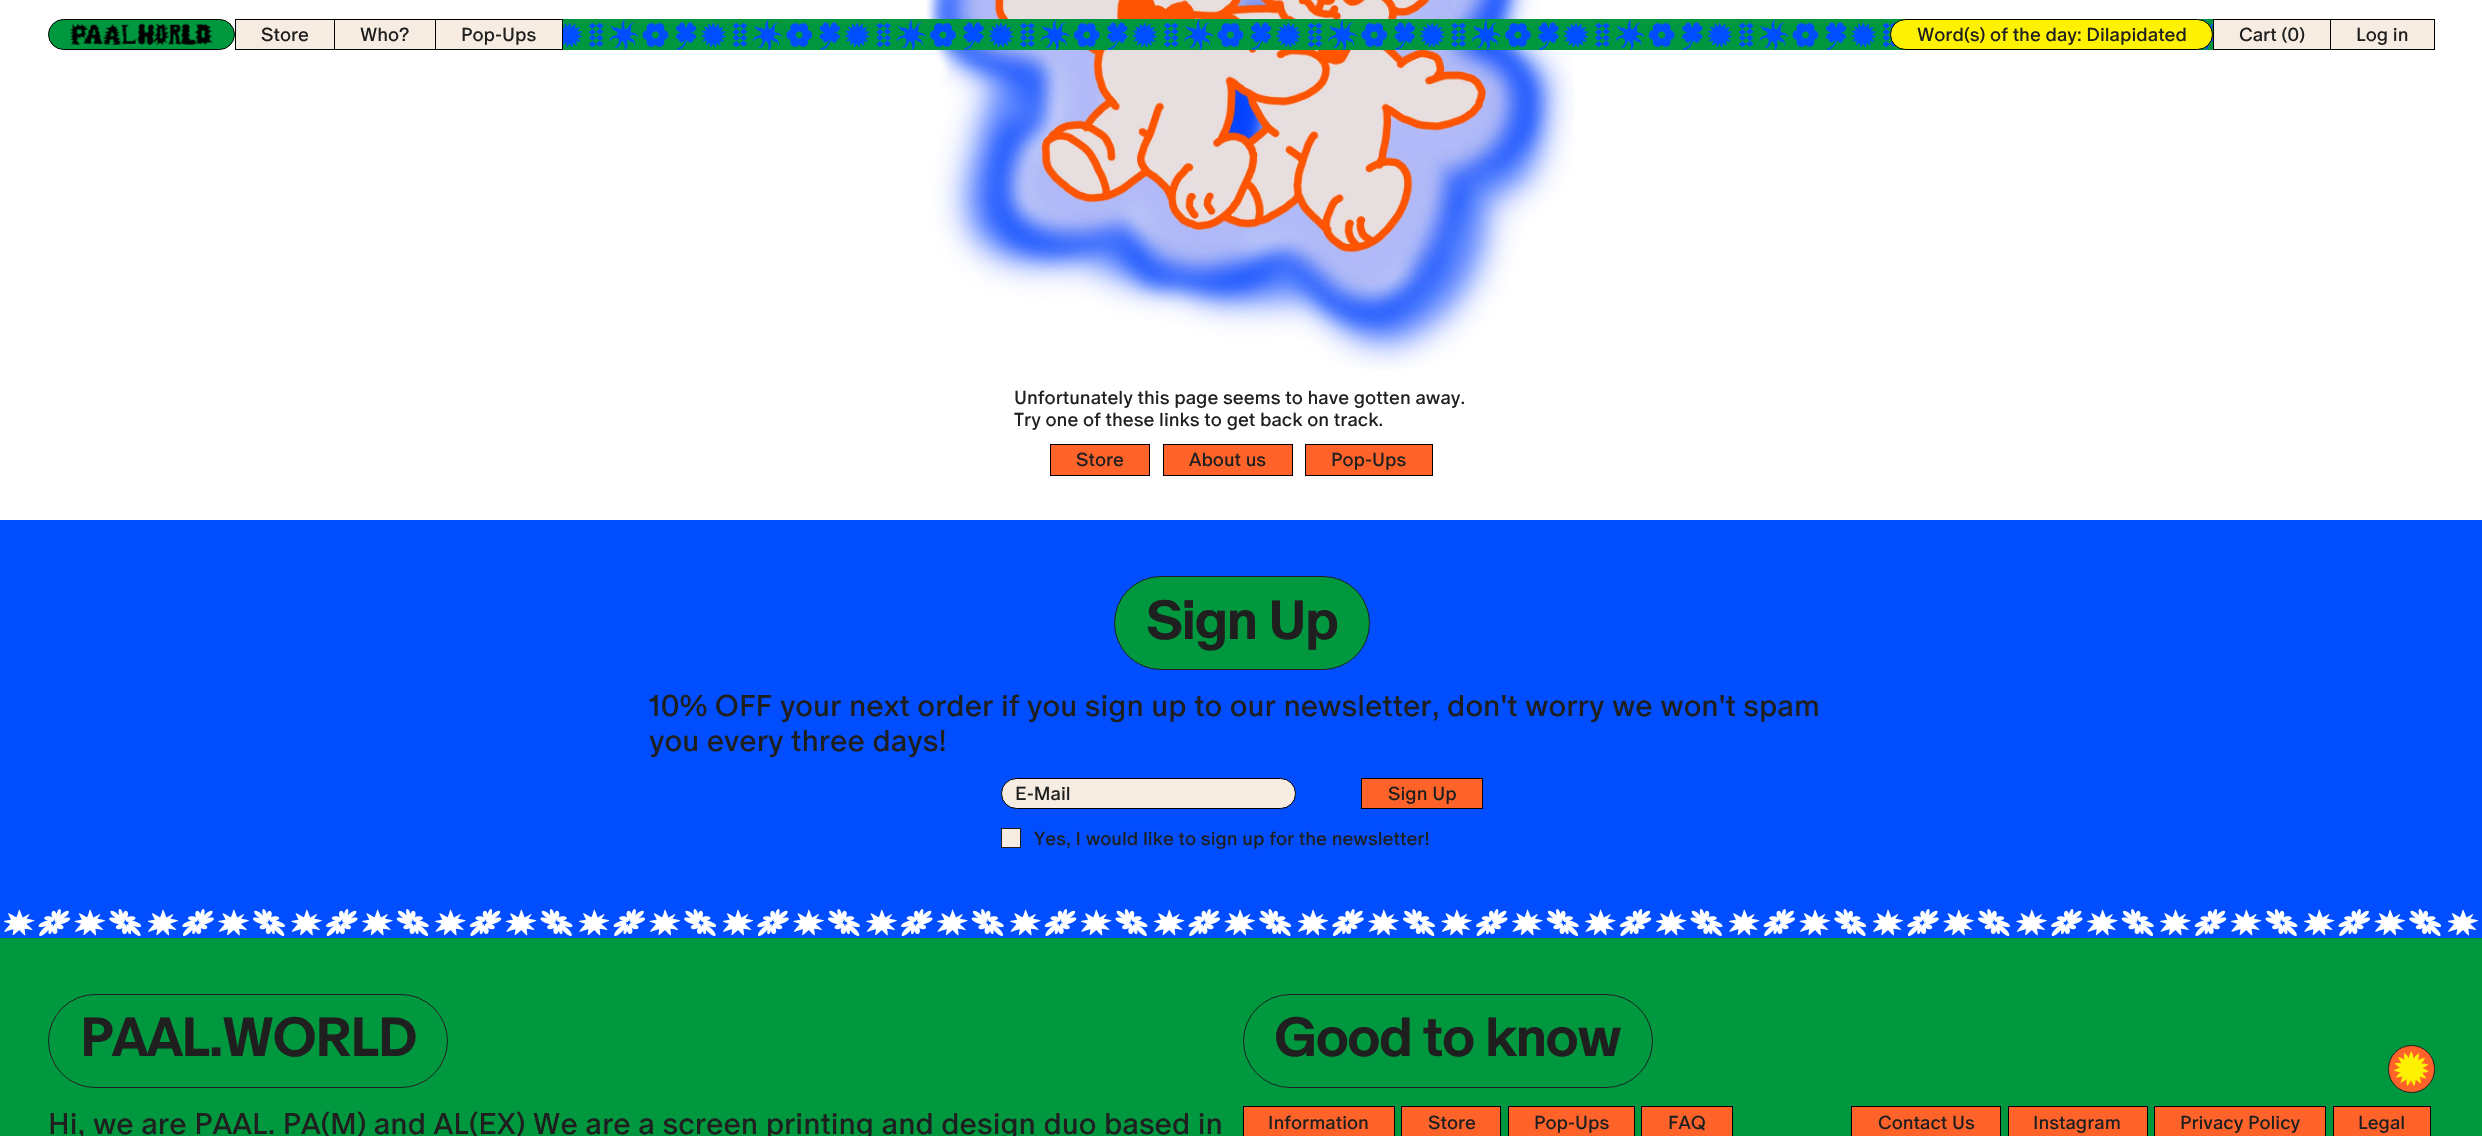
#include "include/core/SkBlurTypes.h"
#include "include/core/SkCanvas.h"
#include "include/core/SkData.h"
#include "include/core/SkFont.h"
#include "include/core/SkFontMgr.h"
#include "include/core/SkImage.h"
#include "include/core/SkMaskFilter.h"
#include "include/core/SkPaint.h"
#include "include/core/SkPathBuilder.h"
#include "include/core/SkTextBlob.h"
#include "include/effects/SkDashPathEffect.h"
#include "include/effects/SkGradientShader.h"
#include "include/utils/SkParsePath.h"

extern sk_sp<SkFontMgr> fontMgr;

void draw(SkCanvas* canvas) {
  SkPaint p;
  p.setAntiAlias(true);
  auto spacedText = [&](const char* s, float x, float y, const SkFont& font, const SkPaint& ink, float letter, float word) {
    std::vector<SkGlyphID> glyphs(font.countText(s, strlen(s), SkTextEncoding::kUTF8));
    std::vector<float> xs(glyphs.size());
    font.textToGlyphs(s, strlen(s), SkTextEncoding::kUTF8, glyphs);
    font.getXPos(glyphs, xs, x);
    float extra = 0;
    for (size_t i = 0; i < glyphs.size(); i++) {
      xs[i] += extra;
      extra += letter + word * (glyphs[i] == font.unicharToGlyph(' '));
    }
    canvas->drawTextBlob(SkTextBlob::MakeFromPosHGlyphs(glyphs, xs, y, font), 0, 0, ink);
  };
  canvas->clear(SK_ColorWHITE);
  canvas->drawImageRect(SkImages::DeferredFromEncodedData(SkData::MakeFromFileName("images/10.png")), SkRect::MakeLTRB(926, 0, 1574, 369), SkSamplingOptions());
  p.setColor(SkColorSetRGB(0, 152, 63));
  canvas->drawRect(SkRect::MakeLTRB(563, 19, 2213, 50), p);
  canvas->drawImageRect(SkImages::DeferredFromEncodedData(SkData::MakeFromFileName("images/1.png")), SkRect::MakeLTRB(563, 22, 583, 48), SkSamplingOptions());
  canvas->drawImageRect(SkImages::DeferredFromEncodedData(SkData::MakeFromFileName("images/2.png")), SkRect::MakeLTRB(589, 19, 726, 50), SkSamplingOptions());
  canvas->drawImageRect(SkImages::DeferredFromEncodedData(SkData::MakeFromFileName("images/3.png")), SkRect::MakeLTRB(733, 19, 870, 50), SkSamplingOptions());
  canvas->drawImageRect(SkImages::DeferredFromEncodedData(SkData::MakeFromFileName("images/4.png")), SkRect::MakeLTRB(876, 19, 1014, 50), SkSamplingOptions());
  canvas->drawImageRect(SkImages::DeferredFromEncodedData(SkData::MakeFromFileName("images/5.png")), SkRect::MakeLTRB(1020, 19, 1158, 50), SkSamplingOptions());
  canvas->drawImageRect(SkImages::DeferredFromEncodedData(SkData::MakeFromFileName("images/2.png")), SkRect::MakeLTRB(1164, 19, 1301, 50), SkSamplingOptions());
  canvas->drawImageRect(SkImages::DeferredFromEncodedData(SkData::MakeFromFileName("images/3.png")), SkRect::MakeLTRB(1308, 19, 1445, 50), SkSamplingOptions());
  canvas->drawImageRect(SkImages::DeferredFromEncodedData(SkData::MakeFromFileName("images/4.png")), SkRect::MakeLTRB(1451, 19, 1589, 50), SkSamplingOptions());
  canvas->drawImageRect(SkImages::DeferredFromEncodedData(SkData::MakeFromFileName("images/5.png")), SkRect::MakeLTRB(1595, 19, 1733, 50), SkSamplingOptions());
  canvas->drawImageRect(SkImages::DeferredFromEncodedData(SkData::MakeFromFileName("images/2.png")), SkRect::MakeLTRB(1739, 19, 1876, 50), SkSamplingOptions());
  canvas->drawImageRect(SkImages::DeferredFromEncodedData(SkData::MakeFromFileName("images/6.png")), SkRect::MakeLTRB(1883, 23, 1896, 48), SkSamplingOptions());
  canvas->drawImageRect(SkImages::DeferredFromEncodedData(SkData::MakeFromFileName("images/7.png")), SkRect::MakeLTRB(2204, 19, 2213, 50), SkSamplingOptions());
  canvas->drawRoundRect(SkRect::MakeLTRB(48.5f, 19.5f, 234.5f, 49.5f), 15, 15, p);
  p.setStyle(SkPaint::kStroke_Style);
  p.setStrokeWidth(1);
  p.setColor(SK_ColorBLACK);
  canvas->drawRoundRect(SkRect::MakeLTRB(48.5f, 19.5f, 234.5f, 49.5f), 15, 15, p);
  canvas->drawImageRect(SkImages::DeferredFromEncodedData(SkData::MakeFromFileName("images/8.png")), SkRect::MakeLTRB(70, 23, 213, 46), SkSamplingOptions());
  p.setStyle(SkPaint::kFill_Style);
  p.setColor(SkColorSetRGB(246, 236, 225));
  canvas->drawRect(SkRect::MakeLTRB(235.5f, 19.5f, 334.5f, 49.5f), p);
  p.setStyle(SkPaint::kStroke_Style);
  p.setColor(SK_ColorBLACK);
  canvas->drawRect(SkRect::MakeLTRB(235.5f, 19.5f, 334.5f, 49.5f), p);
  p.setStyle(SkPaint::kFill_Style);
  p.setColor(SkColorSetRGB(246, 236, 225));
  canvas->drawRect(SkRect::MakeLTRB(334.5f, 19.5f, 435.5f, 49.5f), p);
  p.setStyle(SkPaint::kStroke_Style);
  p.setColor(SK_ColorBLACK);
  canvas->drawRect(SkRect::MakeLTRB(334.5f, 19.5f, 435.5f, 49.5f), p);
  p.setStyle(SkPaint::kFill_Style);
  p.setColor(SkColorSetRGB(246, 236, 225));
  canvas->drawRect(SkRect::MakeLTRB(435.5f, 19.5f, 562.5f, 49.5f), p);
  p.setStyle(SkPaint::kStroke_Style);
  p.setColor(SK_ColorBLACK);
  canvas->drawRect(SkRect::MakeLTRB(435.5f, 19.5f, 562.5f, 49.5f), p);
  p.setStyle(SkPaint::kFill_Style);
  p.setColor(SkColorSetRGB(254, 241, 2));
  canvas->drawRoundRect(SkRect::MakeLTRB(1890.5f, 19.5f, 2212.5f, 49.5f), 15, 15, p);
  p.setStyle(SkPaint::kStroke_Style);
  p.setColor(SK_ColorBLACK);
  canvas->drawRoundRect(SkRect::MakeLTRB(1890.5f, 19.5f, 2212.5f, 49.5f), 15, 15, p);
  p.setStyle(SkPaint::kFill_Style);
  p.setColor(SkColorSetRGB(246, 236, 225));
  canvas->drawRect(SkRect::MakeLTRB(2213.5f, 19.5f, 2330.5f, 49.5f), p);
  p.setStyle(SkPaint::kStroke_Style);
  p.setColor(SK_ColorBLACK);
  canvas->drawRect(SkRect::MakeLTRB(2213.5f, 19.5f, 2330.5f, 49.5f), p);
  p.setStyle(SkPaint::kFill_Style);
  p.setColor(SkColorSetRGB(246, 236, 225));
  canvas->drawRect(SkRect::MakeLTRB(2330.5f, 19.5f, 2434.5f, 49.5f), p);
  p.setStyle(SkPaint::kStroke_Style);
  p.setColor(SK_ColorBLACK);
  canvas->drawRect(SkRect::MakeLTRB(2330.5f, 19.5f, 2434.5f, 49.5f), p);
  p.setStyle(SkPaint::kFill_Style);
  p.setColor(SkColorSetRGB(0, 152, 63));
  canvas->drawRect(SkRect::MakeLTRB(0, 938, 2482, 1136), p);
  p.setColor(SkColorSetRGB(255, 99, 42));
  canvas->drawRoundRect(SkRect::MakeLTRB(2388.5f, 1045.5f, 2434.5f, 1092.5f), 23, 23, p);
  p.setStyle(SkPaint::kStroke_Style);
  p.setColor(SkColorSetRGB(31, 31, 31));
  canvas->drawRoundRect(SkRect::MakeLTRB(2388.5f, 1045.5f, 2434.5f, 1092.5f), 23, 23, p);
  canvas->drawImageRect(SkImages::DeferredFromEncodedData(SkData::MakeFromFileName("images/9.png")), SkRect::MakeLTRB(2394, 1051, 2429, 1086), SkSamplingOptions());
  p.setStyle(SkPaint::kFill_Style);
  p.setColor(SkColorSetRGB(255, 99, 42));
  canvas->drawRect(SkRect::MakeLTRB(1050.5f, 444.5f, 1149.5f, 475.5f), p);
  p.setStyle(SkPaint::kStroke_Style);
  p.setColor(SK_ColorBLACK);
  canvas->drawRect(SkRect::MakeLTRB(1050.5f, 444.5f, 1149.5f, 475.5f), p);
  p.setStyle(SkPaint::kFill_Style);
  p.setColor(SkColorSetRGB(255, 99, 42));
  canvas->drawRect(SkRect::MakeLTRB(1163.5f, 444.5f, 1292.5f, 475.5f), p);
  p.setStyle(SkPaint::kStroke_Style);
  p.setColor(SK_ColorBLACK);
  canvas->drawRect(SkRect::MakeLTRB(1163.5f, 444.5f, 1292.5f, 475.5f), p);
  p.setStyle(SkPaint::kFill_Style);
  p.setColor(SkColorSetRGB(255, 99, 42));
  canvas->drawRect(SkRect::MakeLTRB(1305.5f, 444.5f, 1432.5f, 475.5f), p);
  p.setStyle(SkPaint::kStroke_Style);
  p.setColor(SK_ColorBLACK);
  canvas->drawRect(SkRect::MakeLTRB(1305.5f, 444.5f, 1432.5f, 475.5f), p);
  p.setStyle(SkPaint::kFill_Style);
  p.setColor(SkColorSetRGB(0, 78, 255));
  canvas->drawRect(SkRect::MakeLTRB(0, 520, 2482, 938), p);
  p.setColor(SkColorSetRGB(0, 152, 63));
  canvas->drawRoundRect(SkRect::MakeLTRB(1114.5f, 576.5f, 1369.5f, 669.5f), 46.5f, 46.5f, p);
  p.setStyle(SkPaint::kStroke_Style);
  p.setColor(SkColorSetRGB(31, 31, 31));
  canvas->drawRoundRect(SkRect::MakeLTRB(1114.5f, 576.5f, 1369.5f, 669.5f), 46.5f, 46.5f, p);
  p.setStyle(SkPaint::kFill_Style);
  p.setColor(SkColorSetRGB(246, 236, 225));
  canvas->drawRoundRect(SkRect::MakeLTRB(1001.5f, 778.5f, 1295.5f, 808.5f), 15, 15, p);
  p.setStyle(SkPaint::kStroke_Style);
  p.setColor(SK_ColorBLACK);
  canvas->drawRoundRect(SkRect::MakeLTRB(1001.5f, 778.5f, 1295.5f, 808.5f), 15, 15, p);
  p.setStyle(SkPaint::kFill_Style);
  p.setColor(SkColorSetRGB(255, 99, 42));
  canvas->drawRect(SkRect::MakeLTRB(1361.5f, 778.5f, 1482.5f, 808.5f), p);
  p.setStyle(SkPaint::kStroke_Style);
  p.setColor(SK_ColorBLACK);
  canvas->drawRect(SkRect::MakeLTRB(1361.5f, 778.5f, 1482.5f, 808.5f), p);
  p.setStyle(SkPaint::kFill_Style);
  p.setColor(SkColorSetRGB(246, 236, 225));
  canvas->drawRect(SkRect::MakeLTRB(1001.5f, 828.5f, 1020.5f, 847.5f), p);
  p.setStyle(SkPaint::kStroke_Style);
  p.setColor(SkColorSetRGB(31, 31, 31));
  canvas->drawRect(SkRect::MakeLTRB(1001.5f, 828.5f, 1020.5f, 847.5f), p);
  canvas->drawImageRect(SkImages::DeferredFromEncodedData(SkData::MakeFromFileName("images/11.png")), SkRect::MakeLTRB(4, 909, 141, 936), SkSamplingOptions());
  canvas->drawImageRect(SkImages::DeferredFromEncodedData(SkData::MakeFromFileName("images/12.png")), SkRect::MakeLTRB(148, 909, 285, 936), SkSamplingOptions());
  canvas->drawImageRect(SkImages::DeferredFromEncodedData(SkData::MakeFromFileName("images/13.png")), SkRect::MakeLTRB(291, 909, 429, 936), SkSamplingOptions());
  canvas->drawImageRect(SkImages::DeferredFromEncodedData(SkData::MakeFromFileName("images/14.png")), SkRect::MakeLTRB(435, 909, 573, 936), SkSamplingOptions());
  canvas->drawImageRect(SkImages::DeferredFromEncodedData(SkData::MakeFromFileName("images/11.png")), SkRect::MakeLTRB(579, 909, 716, 936), SkSamplingOptions());
  canvas->drawImageRect(SkImages::DeferredFromEncodedData(SkData::MakeFromFileName("images/12.png")), SkRect::MakeLTRB(723, 909, 860, 936), SkSamplingOptions());
  canvas->drawImageRect(SkImages::DeferredFromEncodedData(SkData::MakeFromFileName("images/13.png")), SkRect::MakeLTRB(866, 909, 1004, 936), SkSamplingOptions());
  canvas->drawImageRect(SkImages::DeferredFromEncodedData(SkData::MakeFromFileName("images/14.png")), SkRect::MakeLTRB(1010, 909, 1148, 936), SkSamplingOptions());
  canvas->drawImageRect(SkImages::DeferredFromEncodedData(SkData::MakeFromFileName("images/11.png")), SkRect::MakeLTRB(1154, 909, 1291, 936), SkSamplingOptions());
  canvas->drawImageRect(SkImages::DeferredFromEncodedData(SkData::MakeFromFileName("images/12.png")), SkRect::MakeLTRB(1298, 909, 1435, 936), SkSamplingOptions());
  canvas->drawImageRect(SkImages::DeferredFromEncodedData(SkData::MakeFromFileName("images/13.png")), SkRect::MakeLTRB(1441, 909, 1579, 936), SkSamplingOptions());
  canvas->drawImageRect(SkImages::DeferredFromEncodedData(SkData::MakeFromFileName("images/14.png")), SkRect::MakeLTRB(1585, 909, 1723, 936), SkSamplingOptions());
  canvas->drawImageRect(SkImages::DeferredFromEncodedData(SkData::MakeFromFileName("images/11.png")), SkRect::MakeLTRB(1729, 909, 1866, 936), SkSamplingOptions());
  canvas->drawImageRect(SkImages::DeferredFromEncodedData(SkData::MakeFromFileName("images/12.png")), SkRect::MakeLTRB(1873, 909, 2010, 936), SkSamplingOptions());
  canvas->drawImageRect(SkImages::DeferredFromEncodedData(SkData::MakeFromFileName("images/13.png")), SkRect::MakeLTRB(2016, 909, 2154, 936), SkSamplingOptions());
  canvas->drawImageRect(SkImages::DeferredFromEncodedData(SkData::MakeFromFileName("images/14.png")), SkRect::MakeLTRB(2160, 909, 2298, 936), SkSamplingOptions());
  canvas->drawImageRect(SkImages::DeferredFromEncodedData(SkData::MakeFromFileName("images/11.png")), SkRect::MakeLTRB(2304, 909, 2441, 936), SkSamplingOptions());
  canvas->drawImageRect(SkImages::DeferredFromEncodedData(SkData::MakeFromFileName("images/15.png")), SkRect::MakeLTRB(2448, 909, 2479, 936), SkSamplingOptions());
  canvas->drawRoundRect(SkRect::MakeLTRB(48.5f, 994.5f, 447.5f, 1087.5f), 46.5f, 46.5f, p);
  canvas->drawRoundRect(SkRect::MakeLTRB(1243.5f, 994.5f, 1652.5f, 1087.5f), 46.5f, 46.5f, p);
  p.setStyle(SkPaint::kFill_Style);
  p.setColor(SkColorSetRGB(255, 99, 42));
  canvas->drawRect(SkRect::MakeLTRB(1243.5f, 1106.5f, 1394.5f, 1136.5f), p);
  p.setStyle(SkPaint::kStroke_Style);
  p.setColor(SK_ColorBLACK);
  canvas->drawRect(SkRect::MakeLTRB(1243.5f, 1106.5f, 1394.5f, 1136.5f), p);
  p.setStyle(SkPaint::kFill_Style);
  p.setColor(SkColorSetRGB(255, 99, 42));
  canvas->drawRect(SkRect::MakeLTRB(1401.5f, 1106.5f, 1500.5f, 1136.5f), p);
  p.setStyle(SkPaint::kStroke_Style);
  p.setColor(SK_ColorBLACK);
  canvas->drawRect(SkRect::MakeLTRB(1401.5f, 1106.5f, 1500.5f, 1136.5f), p);
  p.setStyle(SkPaint::kFill_Style);
  p.setColor(SkColorSetRGB(255, 99, 42));
  canvas->drawRect(SkRect::MakeLTRB(1508.5f, 1106.5f, 1634.5f, 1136.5f), p);
  p.setStyle(SkPaint::kStroke_Style);
  p.setColor(SK_ColorBLACK);
  canvas->drawRect(SkRect::MakeLTRB(1508.5f, 1106.5f, 1634.5f, 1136.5f), p);
  p.setStyle(SkPaint::kFill_Style);
  p.setColor(SkColorSetRGB(255, 99, 42));
  canvas->drawRect(SkRect::MakeLTRB(1641.5f, 1106.5f, 1732.5f, 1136.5f), p);
  p.setStyle(SkPaint::kStroke_Style);
  p.setColor(SK_ColorBLACK);
  canvas->drawRect(SkRect::MakeLTRB(1641.5f, 1106.5f, 1732.5f, 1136.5f), p);
  p.setStyle(SkPaint::kFill_Style);
  p.setColor(SkColorSetRGB(255, 99, 42));
  canvas->drawRect(SkRect::MakeLTRB(1851.5f, 1106.5f, 2000.5f, 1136.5f), p);
  p.setStyle(SkPaint::kStroke_Style);
  p.setColor(SK_ColorBLACK);
  canvas->drawRect(SkRect::MakeLTRB(1851.5f, 1106.5f, 2000.5f, 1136.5f), p);
  p.setStyle(SkPaint::kFill_Style);
  p.setColor(SkColorSetRGB(255, 99, 42));
  canvas->drawRect(SkRect::MakeLTRB(2008.5f, 1106.5f, 2147.5f, 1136.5f), p);
  p.setStyle(SkPaint::kStroke_Style);
  p.setColor(SK_ColorBLACK);
  canvas->drawRect(SkRect::MakeLTRB(2008.5f, 1106.5f, 2147.5f, 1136.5f), p);
  p.setStyle(SkPaint::kFill_Style);
  p.setColor(SkColorSetRGB(255, 99, 42));
  canvas->drawRect(SkRect::MakeLTRB(2154.5f, 1106.5f, 2325.5f, 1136.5f), p);
  p.setStyle(SkPaint::kStroke_Style);
  p.setColor(SK_ColorBLACK);
  canvas->drawRect(SkRect::MakeLTRB(2154.5f, 1106.5f, 2325.5f, 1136.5f), p);
  p.setStyle(SkPaint::kFill_Style);
  p.setColor(SkColorSetRGB(255, 99, 42));
  canvas->drawRect(SkRect::MakeLTRB(2333.5f, 1106.5f, 2430.5f, 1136.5f), p);
  p.setStyle(SkPaint::kStroke_Style);
  p.setColor(SK_ColorBLACK);
  canvas->drawRect(SkRect::MakeLTRB(2333.5f, 1106.5f, 2430.5f, 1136.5f), p);
  SkFont font1(fontMgr->matchFamilyStyle("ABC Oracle", SkFontStyle::Normal()), 18.75f);
  font1.setSubpixel(true);
  p.setStyle(SkPaint::kFill_Style);
  p.setColor(SkColorSetRGB(31, 31, 31));
  canvas->drawString("Store", 261, 41, font1, p);
  canvas->drawString("Who?", 360, 41, font1, p);
  canvas->drawString("Pop-Ups", 461, 41, font1, p);
  canvas->drawString("Word(s) of the day: Dilapidated", 1917, 41, font1, p);
  canvas->drawString("Cart (0)", 2239, 41, font1, p);
  canvas->drawString("Log in", 2356, 41, font1, p);
  canvas->drawString("Unfortunately this page seems to have gotten away.", 1014, 404, font1, p);
  canvas->drawString("Try one of these links to get back on track.", 1014, 426, font1, p);
  canvas->drawString("Store", 1076, 466, font1, p);
  canvas->drawString("About us", 1189, 466, font1, p);
  canvas->drawString("Pop-Ups", 1331, 466, font1, p);
  SkFont font2(fontMgr->matchFamilyStyle("ABC Oracle", SkFontStyle::Bold()), 55);
  font2.setSubpixel(true);
  spacedText("Sign Up", 1146, 639, font2, p, -1.6f, 0);
  SkFont font3(fontMgr->matchFamilyStyle("ABC Oracle", SkFontStyle::Normal()), 30);
  font3.setSubpixel(true);
  canvas->drawString("10% OFF your next order if you sign up to our newsletter, don't worry we won't spam", 649, 716, font3, p);
  canvas->drawString("you every three days!", 649, 751, font3, p);
  canvas->drawString("E-Mail", 1015, 800, font1, p);
  canvas->drawString("Sign Up", 1388, 800, font1, p);
  canvas->drawString("Yes, I would like to sign up for the newsletter!", 1034, 845, font1, p);
  spacedText("PAAL.WORLD", 80, 1056, font2, p, -1.6f, 0);
  canvas->drawString("Hi, we are PAAL. PA(M) and AL(EX) We are a screen printing and design duo based in", 48, 1134, font3, p);
  spacedText("Good to know", 1274, 1056, font2, p, -1.6f, 0);
  canvas->drawString("Information", 1268, 1129, font1, p);
  canvas->drawString("Store", 1428, 1129, font1, p);
  canvas->drawString("Pop-Ups", 1534, 1129, font1, p);
  canvas->drawString("FAQ", 1668, 1129, font1, p);
  canvas->drawString("Contact Us", 1878, 1129, font1, p);
  canvas->drawString("Instagram", 2033, 1129, font1, p);
  canvas->drawString("Privacy Policy", 2180, 1129, font1, p);
  canvas->drawString("Legal", 2358, 1129, font1, p);
}
